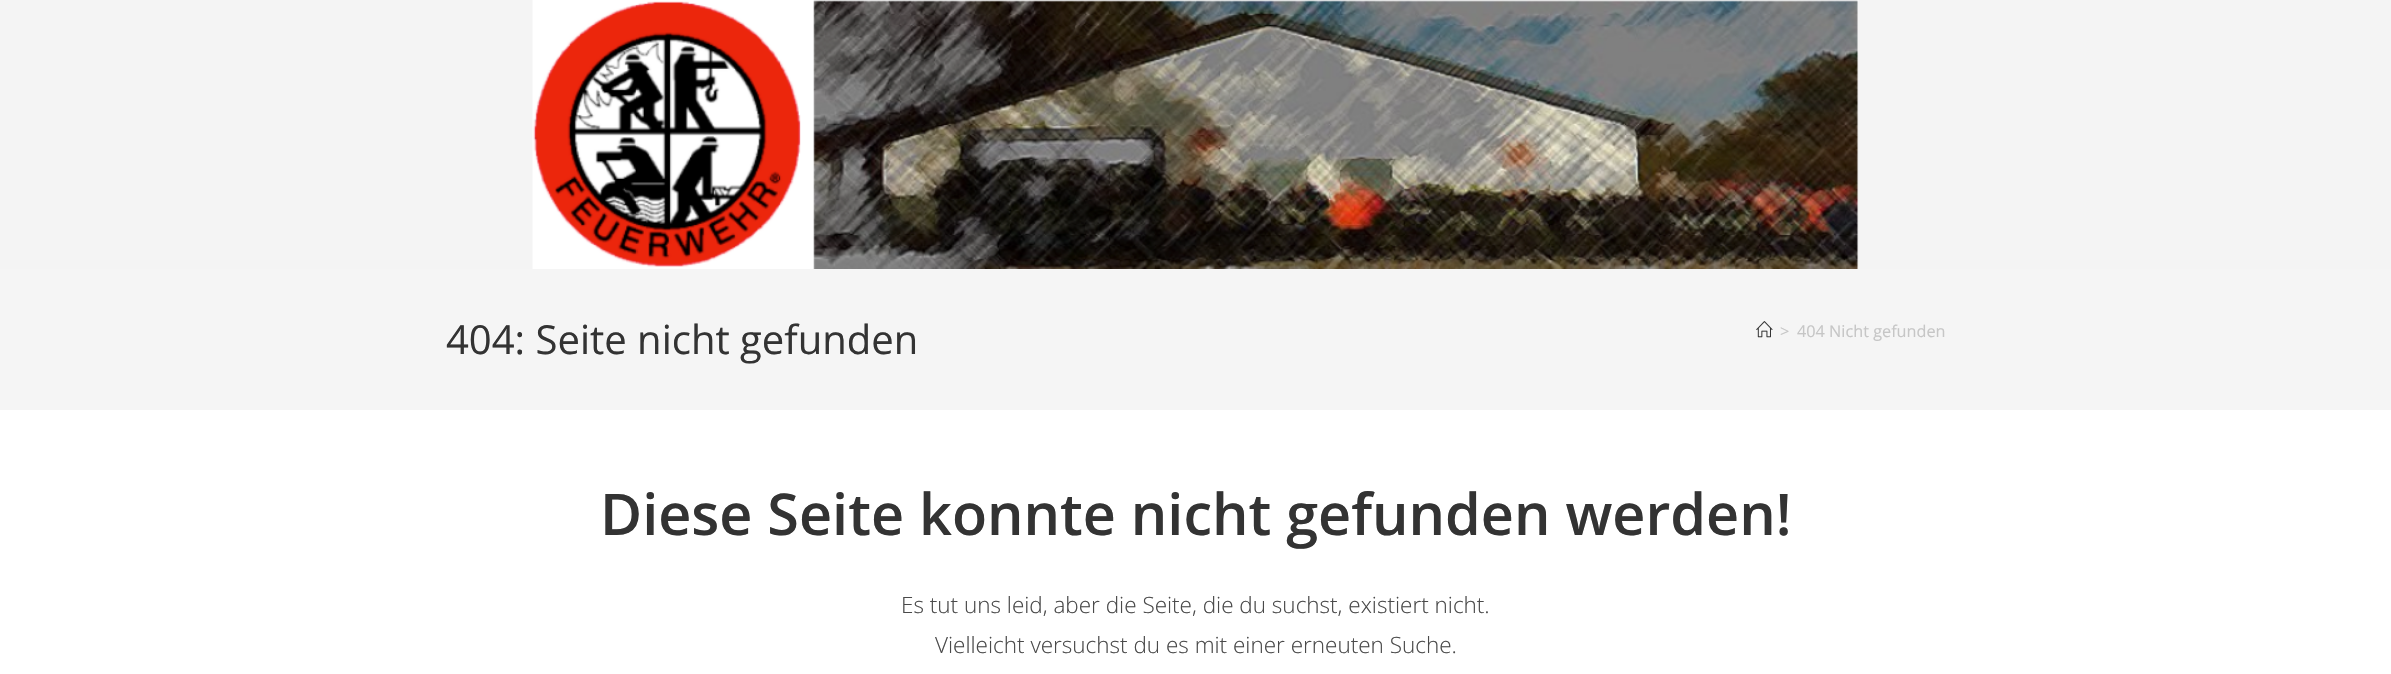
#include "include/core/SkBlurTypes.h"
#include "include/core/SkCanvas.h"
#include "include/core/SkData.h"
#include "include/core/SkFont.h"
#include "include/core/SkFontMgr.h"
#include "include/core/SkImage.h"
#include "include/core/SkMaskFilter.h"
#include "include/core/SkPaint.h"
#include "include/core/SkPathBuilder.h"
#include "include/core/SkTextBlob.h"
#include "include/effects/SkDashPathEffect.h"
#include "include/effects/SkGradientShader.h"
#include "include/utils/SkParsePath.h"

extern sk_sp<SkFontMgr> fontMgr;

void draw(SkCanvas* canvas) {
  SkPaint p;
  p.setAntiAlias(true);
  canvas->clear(SK_ColorWHITE);
  p.setColor(SkColorSetRGB(244, 244, 244));
  canvas->drawRect(SkRect::MakeLTRB(0, 0, 2391, 269), p);
  canvas->drawImageRect(SkImages::DeferredFromEncodedData(SkData::MakeFromFileName("images/1.png")), SkRect::MakeLTRB(532, 0, 1859, 269), SkSamplingOptions());
  p.setColor(SkColorSetRGB(245, 245, 245));
  canvas->drawRect(SkRect::MakeLTRB(0, 269, 2391, 410), p);
  canvas->drawImageRect(SkImages::DeferredFromEncodedData(SkData::MakeFromFileName("images/2.png")), SkRect::MakeLTRB(1756, 321, 1773, 338), SkSamplingOptions());
  SkFont font1(fontMgr->matchFamilyStyle("Open Sans", SkFontStyle::Normal()), 40);
  font1.setSubpixel(true);
  p.setColor(SkColorSetRGB(51, 51, 51));
  canvas->drawString("404: Seite nicht gefunden", 446, 354, font1, p);
  SkFont font2(fontMgr->matchFamilyStyle("Open Sans", SkFontStyle::Normal()), 16.25f);
  font2.setSubpixel(true);
  p.setColor(SkColorSetRGB(198, 198, 198));
  canvas->drawString(">", 1780, 337, font2, p);
  canvas->drawString("404 Nicht gefunden", 1797, 337, font2, p);
  SkFont font3(fontMgr->matchFamilyStyle("Open Sans", SkFontStyle(600, SkFontStyle::kNormal_Width, SkFontStyle::kUpright_Slant)), 57.5f);
  font3.setSubpixel(true);
  p.setColor(SkColorSetRGB(51, 51, 51));
  canvas->drawString("Diese Seite konnte nicht gefunden werden!", 600, 535, font3, p);
  SkFont font4(fontMgr->matchFamilyStyle("Open Sans", SkFontStyle(300, SkFontStyle::kNormal_Width, SkFontStyle::kUpright_Slant)), 22.5f);
  font4.setSubpixel(true);
  p.setColor(SkColorSetRGB(74, 74, 74));
  canvas->drawString("Es tut uns leid, aber die Seite, die du suchst, existiert nicht.", 901, 613, font4, p);
  canvas->drawString("Vielleicht versuchst du es mit einer erneuten Suche.", 935, 653, font4, p);
}
